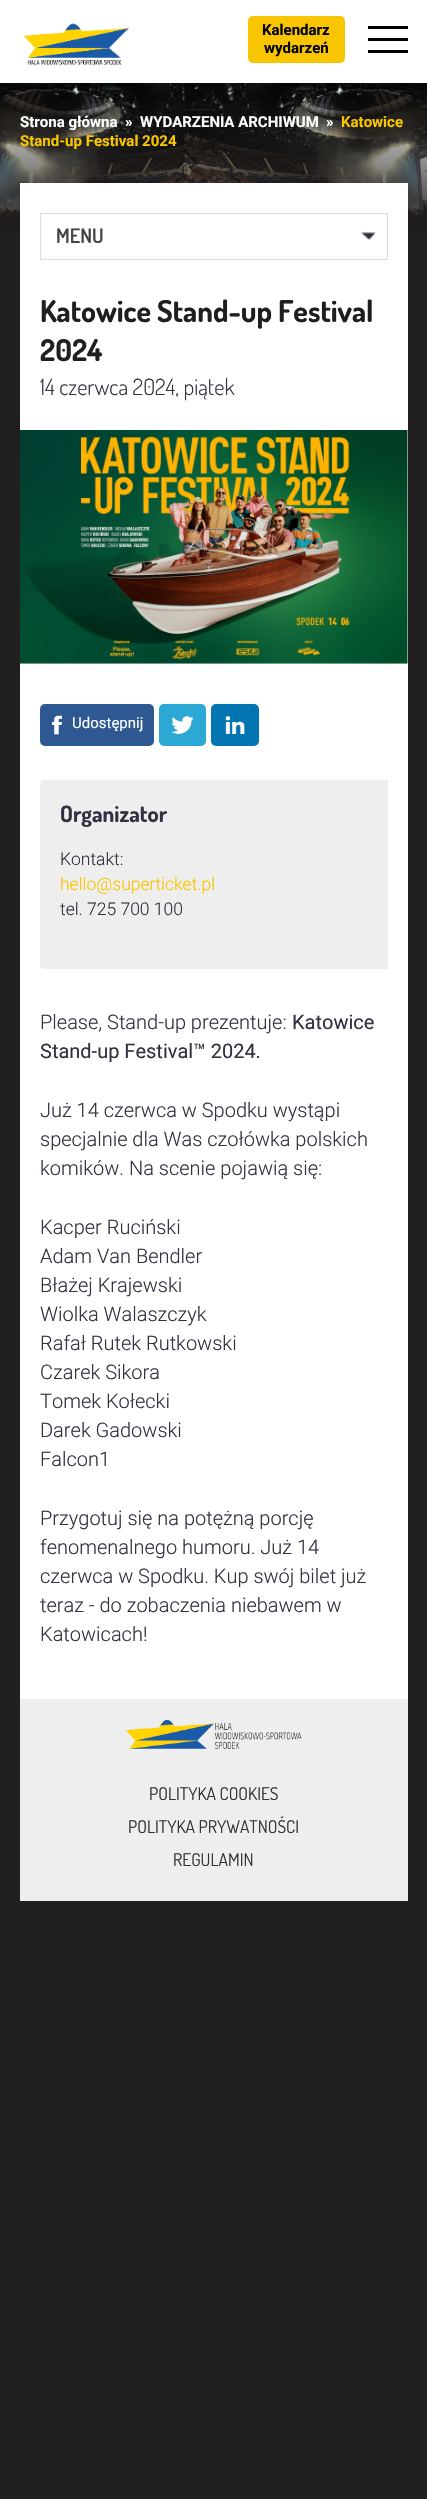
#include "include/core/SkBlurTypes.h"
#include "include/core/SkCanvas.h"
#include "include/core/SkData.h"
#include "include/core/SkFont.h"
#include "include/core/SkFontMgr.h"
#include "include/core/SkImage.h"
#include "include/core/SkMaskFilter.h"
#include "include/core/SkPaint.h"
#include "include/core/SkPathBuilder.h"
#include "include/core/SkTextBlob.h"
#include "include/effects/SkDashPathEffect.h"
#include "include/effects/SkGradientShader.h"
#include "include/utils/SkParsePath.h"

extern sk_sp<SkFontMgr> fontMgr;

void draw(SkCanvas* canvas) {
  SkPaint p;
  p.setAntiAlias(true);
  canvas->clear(SkColorSetRGB(34, 31, 32));
  canvas->drawImageRect(SkImages::DeferredFromEncodedData(SkData::MakeFromFileName("images/1.png")), SkRect::MakeLTRB(0, 83, 427, 231), SkSamplingOptions());
  p.setColor(SK_ColorWHITE);
  canvas->drawRect(SkRect::MakeLTRB(0, 0, 427, 83), p);
  canvas->drawImageRect(SkImages::DeferredFromEncodedData(SkData::MakeFromFileName("images/2.png")), SkRect::MakeLTRB(23, 23, 129, 66), SkSamplingOptions());
  p.setColor(SkColorSetRGB(249, 197, 0));
  canvas->drawRoundRect(SkRect::MakeLTRB(248, 16, 345, 63), 5, 5, p);
  p.setColor(SK_ColorBLACK);
  canvas->drawRect(SkRect::MakeLTRB(368, 26, 408, 29), p);
  canvas->drawRect(SkRect::MakeLTRB(368, 38, 408, 41), p);
  canvas->drawRect(SkRect::MakeLTRB(368, 50, 408, 53), p);
  p.setColor(SkColorSetRGB(238, 238, 238));
  canvas->drawRect(SkRect::MakeLTRB(20, 1699, 408, 1901), p);
  p.setColor(SK_ColorWHITE);
  canvas->drawRect(SkRect::MakeLTRB(20, 183, 408, 1699), p);
  canvas->drawImageRect(SkImages::DeferredFromEncodedData(SkData::MakeFromFileName("images/3.png")), SkRect::MakeLTRB(361, 232, 376, 240), SkSamplingOptions());
  p.setStyle(SkPaint::kStroke_Style);
  p.setStrokeWidth(1);
  p.setColor(SkColorSetRGB(221, 221, 221));
  canvas->drawRect(SkRect::MakeLTRB(40.5f, 213.5f, 387.5f, 259.5f), p);
  canvas->drawImageRect(SkImages::DeferredFromEncodedData(SkData::MakeFromFileName("images/4.png")), SkRect::MakeLTRB(20, 430, 408, 664), SkSamplingOptions());
  p.setStyle(SkPaint::kFill_Style);
  p.setColor(SkColorSetRGB(46, 88, 145));
  canvas->drawRoundRect(SkRect::MakeLTRB(40, 704, 154, 746), 5, 5, p);
  canvas->drawImageRect(SkImages::DeferredFromEncodedData(SkData::MakeFromFileName("images/5.png")), SkRect::MakeLTRB(52, 715, 62, 735), SkSamplingOptions());
  p.setColor(SkColorSetRGB(43, 168, 211));
  canvas->drawRoundRect(SkRect::MakeLTRB(159, 704, 206, 746), 5, 5, p);
  canvas->drawImageRect(SkImages::DeferredFromEncodedData(SkData::MakeFromFileName("images/6.png")), SkRect::MakeLTRB(171, 716, 194, 734), SkSamplingOptions());
  p.setColor(SkColorSetRGB(3, 117, 179));
  canvas->drawRoundRect(SkRect::MakeLTRB(211, 704, 259, 746), 5, 5, p);
  canvas->drawImageRect(SkImages::DeferredFromEncodedData(SkData::MakeFromFileName("images/7.png")), SkRect::MakeLTRB(225, 716, 245, 734), SkSamplingOptions());
  p.setColor(SkColorSetRGB(238, 238, 238));
  canvas->drawPath(SkPathBuilder().moveTo(45, 780).lineTo(388, 780).lineTo(388, 969).lineTo(45, 969).cubicTo(42, 969, 40, 967, 40, 964).lineTo(40, 785).cubicTo(40, 782, 42, 780, 45, 780).close().detach(), p);
  canvas->drawImageRect(SkImages::DeferredFromEncodedData(SkData::MakeFromFileName("images/8.png")), SkRect::MakeLTRB(126, 1720, 302, 1749), SkSamplingOptions());
  SkFont font1(fontMgr->matchFamilyStyle("Roboto", SkFontStyle::Bold()), 15);
  font1.setSubpixel(true);
  p.setColor(SK_ColorBLACK);
  canvas->drawString("Kalendarz", 262, 35, font1, p);
  canvas->drawString("wydarzeń", 264, 53, font1, p);
  p.setColor(SK_ColorWHITE);
  canvas->drawString("Strona główna", 20, 127, font1, p);
  canvas->drawString("»", 125, 127, font1, p);
  canvas->drawString("WYDARZENIA ARCHIWUM", 140, 127, font1, p);
  canvas->drawString("»", 326, 127, font1, p);
  p.setColor(SkColorSetRGB(249, 197, 0));
  canvas->drawString("Katowice", 341, 127, font1, p);
  canvas->drawString("Stand-up Festival 2024", 20, 146, font1, p);
  SkFont font2(fontMgr->matchFamilyStyle("Dosis", SkFontStyle(600, SkFontStyle::kNormal_Width, SkFontStyle::kUpright_Slant)), 20);
  font2.setSubpixel(true);
  p.setColor(SkColorSetRGB(68, 68, 68));
  canvas->drawString("MENU", 56, 243, font2, p);
  SkFont font3(fontMgr->matchFamilyStyle("Dosis", SkFontStyle::Bold()), 30);
  font3.setSubpixel(true);
  p.setColor(SkColorSetRGB(31, 31, 31));
  canvas->drawString("Katowice Stand-up Festival", 40, 322, font3, p);
  canvas->drawString("2024", 40, 361, font3, p);
  SkFont font4(fontMgr->matchFamilyStyle("Dosis", SkFontStyle(300, SkFontStyle::kNormal_Width, SkFontStyle::kUpright_Slant)), 22.5f);
  font4.setSubpixel(true);
  p.setColor(SkColorSetRGB(49, 49, 63));
  canvas->drawString("14 czerwca 2024, piątek", 40, 395, font4, p);
  SkFont font5(fontMgr->matchFamilyStyle("Roboto", SkFontStyle::Normal()), 15);
  font5.setSubpixel(true);
  p.setColor(SK_ColorWHITE);
  canvas->drawString("Udostępnij", 72, 728, font5, p);
  SkFont font6(fontMgr->matchFamilyStyle("Dosis", SkFontStyle::Bold()), 22.5f);
  font6.setSubpixel(true);
  p.setColor(SkColorSetRGB(49, 49, 63));
  canvas->drawString("Organizator", 60, 822, font6, p);
  SkFont font7(fontMgr->matchFamilyStyle("Roboto", SkFontStyle(300, SkFontStyle::kNormal_Width, SkFontStyle::kUpright_Slant)), 17.5f);
  font7.setSubpixel(true);
  canvas->drawString("Kontakt:", 60, 865, font7, p);
  p.setColor(SkColorSetRGB(249, 197, 0));
  canvas->drawString("hello@superticket.pl", 60, 890, font7, p);
  p.setColor(SkColorSetRGB(49, 49, 63));
  canvas->drawString("tel. 725 700 100", 60, 915, font7, p);
  SkFont font8(fontMgr->matchFamilyStyle("Roboto", SkFontStyle(300, SkFontStyle::kNormal_Width, SkFontStyle::kUpright_Slant)), 20);
  font8.setSubpixel(true);
  canvas->drawString("Please, Stand-up prezentuje:", 40, 1029, font8, p);
  SkFont font9(fontMgr->matchFamilyStyle("Roboto", SkFontStyle::Normal()), 20);
  font9.setSubpixel(true);
  canvas->drawString("Katowice", 292, 1029, font9, p);
  canvas->drawString("Stand-up Festival™ 2024.", 40, 1058, font9, p);
  canvas->drawString("Już 14 czerwca w Spodku wystąpi", 40, 1117, font8, p);
  canvas->drawString("specjalnie dla Was czołówka polskich", 40, 1146, font8, p);
  canvas->drawString("komików. Na scenie pojawią się:", 40, 1175, font8, p);
  canvas->drawString("Kacper Ruciński", 40, 1234, font8, p);
  canvas->drawString("Adam Van Bendler", 40, 1263, font8, p);
  canvas->drawString("Błażej Krajewski", 40, 1292, font8, p);
  canvas->drawString("Wiolka Walaszczyk", 40, 1321, font8, p);
  canvas->drawString("Rafał Rutek Rutkowski", 40, 1350, font8, p);
  canvas->drawString("Czarek Sikora", 40, 1379, font8, p);
  canvas->drawString("Tomek Kołecki", 40, 1408, font8, p);
  canvas->drawString("Darek Gadowski", 40, 1437, font8, p);
  canvas->drawString("Falcon1", 40, 1466, font8, p);
  canvas->drawString("Przygotuj się na potężną porcję", 40, 1525, font8, p);
  canvas->drawString("fenomenalnego humoru. Już 14", 40, 1554, font8, p);
  canvas->drawString("czerwca w Spodku. Kup swój bilet już", 40, 1583, font8, p);
  canvas->drawString("teraz - do zobaczenia niebawem w", 40, 1612, font8, p);
  canvas->drawString("Katowicach!", 40, 1641, font8, p);
  SkFont font10(fontMgr->matchFamilyStyle("Dosis", SkFontStyle::Normal()), 17.5f);
  font10.setSubpixel(true);
  p.setColor(SkColorSetRGB(51, 51, 51));
  canvas->drawString("POLITYKA COOKIES", 149, 1800, font10, p);
  canvas->drawString("POLITYKA PRYWATNOŚCI", 128, 1833, font10, p);
  canvas->drawString("REGULAMIN", 173, 1866, font10, p);
}
